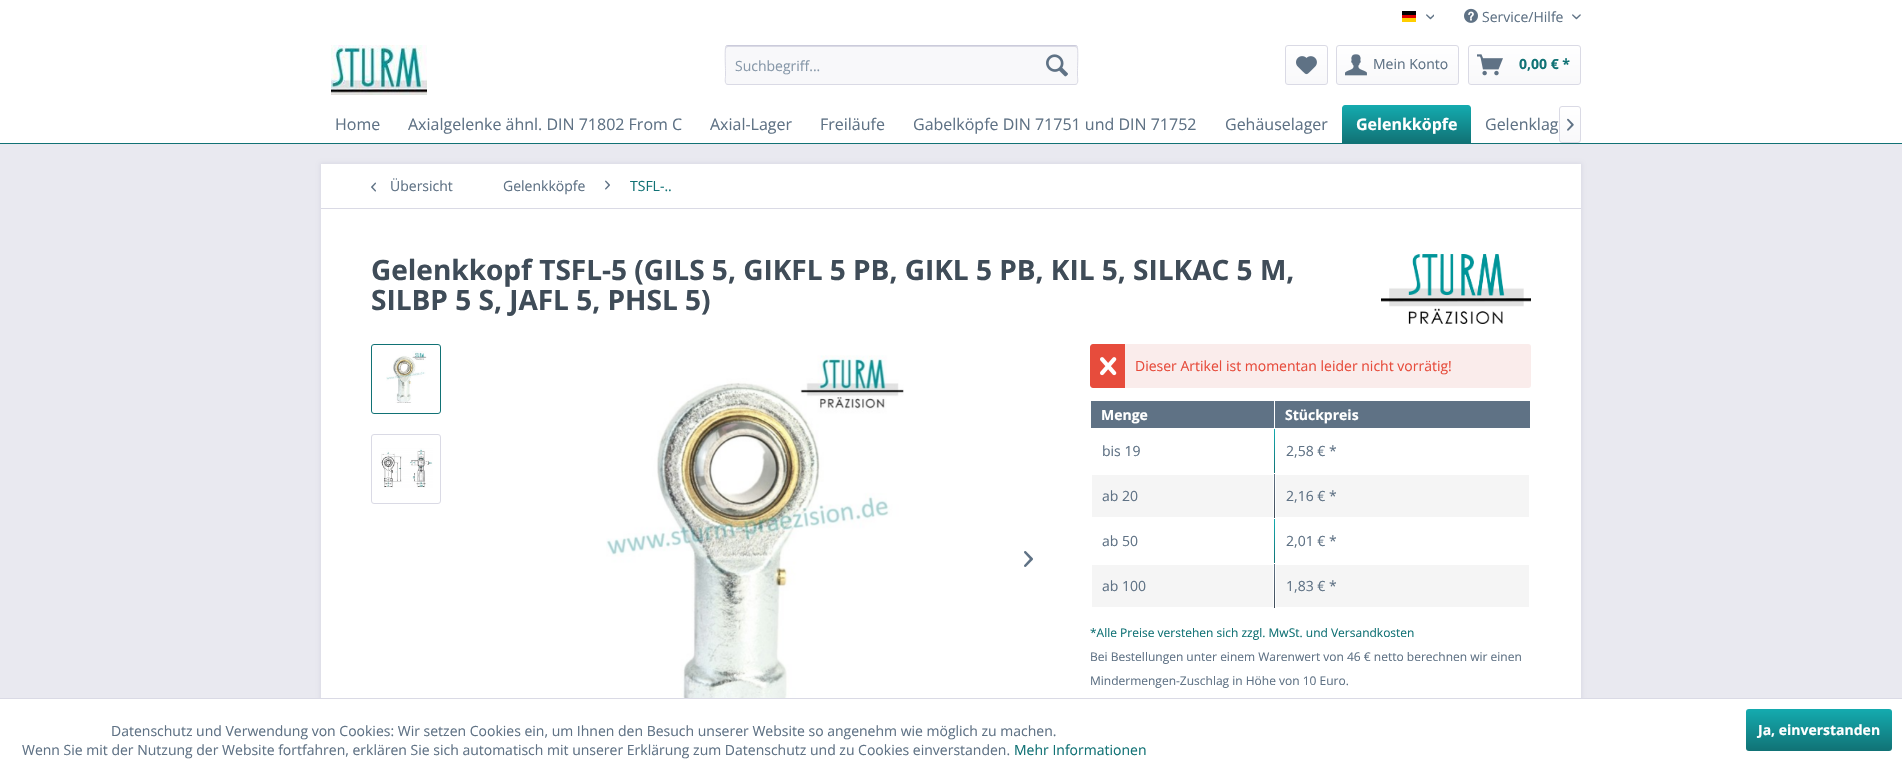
#include "include/core/SkBlurTypes.h"
#include "include/core/SkCanvas.h"
#include "include/core/SkData.h"
#include "include/core/SkFont.h"
#include "include/core/SkFontMgr.h"
#include "include/core/SkImage.h"
#include "include/core/SkMaskFilter.h"
#include "include/core/SkPaint.h"
#include "include/core/SkPathBuilder.h"
#include "include/core/SkTextBlob.h"
#include "include/effects/SkDashPathEffect.h"
#include "include/effects/SkGradientShader.h"
#include "include/utils/SkParsePath.h"

extern sk_sp<SkFontMgr> fontMgr;

void draw(SkCanvas* canvas) {
  SkPaint p;
  p.setAntiAlias(true);
  canvas->clear(SkColorSetRGB(233, 233, 240));
  p.setColor(SK_ColorWHITE);
  canvas->drawRect(SkRect::MakeLTRB(0, 0, 1902, 143), p);
  p.setColor(SK_ColorBLACK);
  canvas->drawRect(SkRect::MakeLTRB(1402, 11, 1416, 15), p);
  p.setColor(SkColorSetRGB(221, 0, 0));
  canvas->drawRect(SkRect::MakeLTRB(1402, 15, 1416, 18), p);
  p.setColor(SkColorSetRGB(255, 206, 0));
  canvas->drawRect(SkRect::MakeLTRB(1402, 18, 1416, 22), p);
  canvas->drawImageRect(SkImages::DeferredFromEncodedData(SkData::MakeFromFileName("images/1.png")), SkRect::MakeLTRB(1426, 14, 1434, 20), SkSamplingOptions());
  canvas->drawImageRect(SkImages::DeferredFromEncodedData(SkData::MakeFromFileName("images/2.png")), SkRect::MakeLTRB(1464, 8, 1478, 23), SkSamplingOptions());
  canvas->drawImageRect(SkImages::DeferredFromEncodedData(SkData::MakeFromFileName("images/3.png")), SkRect::MakeLTRB(1572, 14, 1581, 20), SkSamplingOptions());
  canvas->drawImageRect(SkImages::DeferredFromEncodedData(SkData::MakeFromFileName("images/4.png")), SkRect::MakeLTRB(331, 45, 427, 95), SkSamplingOptions());
  p.setColor(SkColorSetRGB(248, 248, 250));
  canvas->drawRoundRect(SkRect::MakeLTRB(725, 45, 1078, 85), 3, 3, p);
  p.setColor(SkColorSetRGB(218, 218, 229));
  canvas->drawPath(SkPathBuilder().moveTo(728, 47).lineTo(1075, 47).cubicTo(1076, 47, 1077, 48, 1077, 49).cubicTo(1077, 48, 1077, 46, 1075, 46).lineTo(728, 46).cubicTo(726, 46, 726, 48, 726, 49).cubicTo(726, 48, 727, 47, 728, 47).close().detach(), p);
  p.setStyle(SkPaint::kStroke_Style);
  p.setStrokeWidth(1);
  p.setColor(SkColorSetRGB(203, 203, 219));
  canvas->drawPath(SkPathBuilder().moveTo(726, 46).lineTo(728, 45.5f).lineTo(1075, 45.5f).lineTo(1077, 46).detach(), p);
  p.setColor(SkColorSetRGB(218, 218, 229));
  canvas->drawPath(SkPathBuilder().moveTo(1077, 46).cubicTo(1078.5f, 48, 1077.5f, 67, 1077.5f, 70.5f).lineTo(1077.5f, 76.5f).cubicTo(1077.5f, 78, 1079, 84.5f, 1075, 84.5f).lineTo(728, 84.5f).cubicTo(724, 84.5f, 725.5f, 78, 725.5f, 76.5f).lineTo(725.5f, 70.5f).cubicTo(725.5f, 67, 724.5f, 48, 726, 46).detach(), p);
  canvas->drawImageRect(SkImages::DeferredFromEncodedData(SkData::MakeFromFileName("images/5.png")), SkRect::MakeLTRB(1046, 54, 1068, 77), SkSamplingOptions());
  p.setStyle(SkPaint::kFill_Style);
  {
    const SkColor colors[] = {SK_ColorWHITE, SkColorSetRGB(248, 248, 250)};
    const float stops[] = {0, 1};
    const SkPoint ends[] = {{1307, 46}, {1307, 84}};
    p.setShader(SkGradientShader::MakeLinear(ends, colors, stops, 2, SkTileMode::kClamp));
    p.setAlpha(255);
  }
  canvas->drawRoundRect(SkRect::MakeLTRB(1286, 46, 1327, 84), 2, 2, p);
  p.setStyle(SkPaint::kStroke_Style);
  p.setShader(nullptr);
  p.setColor(SkColorSetRGB(218, 218, 229));
  canvas->drawRoundRect(SkRect::MakeLTRB(1285.5f, 45.5f, 1327.5f, 84.5f), 2.5f, 2.5f, p);
  canvas->drawImageRect(SkImages::DeferredFromEncodedData(SkData::MakeFromFileName("images/6.png")), SkRect::MakeLTRB(1296, 56, 1317, 75), SkSamplingOptions());
  p.setStyle(SkPaint::kFill_Style);
  {
    const SkColor colors[] = {SK_ColorWHITE, SkColorSetRGB(248, 248, 250)};
    const float stops[] = {0, 1};
    const SkPoint ends[] = {{1398, 46}, {1398, 84}};
    p.setShader(SkGradientShader::MakeLinear(ends, colors, stops, 2, SkTileMode::kClamp));
    p.setAlpha(255);
  }
  canvas->drawRoundRect(SkRect::MakeLTRB(1337, 46, 1458, 84), 2, 2, p);
  p.setStyle(SkPaint::kStroke_Style);
  p.setShader(nullptr);
  p.setColor(SkColorSetRGB(218, 218, 229));
  canvas->drawRoundRect(SkRect::MakeLTRB(1336.5f, 45.5f, 1458.5f, 84.5f), 2.5f, 2.5f, p);
  canvas->drawImageRect(SkImages::DeferredFromEncodedData(SkData::MakeFromFileName("images/7.png")), SkRect::MakeLTRB(1345, 54, 1367, 76), SkSamplingOptions());
  p.setStyle(SkPaint::kFill_Style);
  {
    const SkColor colors[] = {SK_ColorWHITE, SkColorSetRGB(248, 248, 250)};
    const float stops[] = {0, 1};
    const SkPoint ends[] = {{1525, 46}, {1525, 84}};
    p.setShader(SkGradientShader::MakeLinear(ends, colors, stops, 2, SkTileMode::kClamp));
    p.setAlpha(255);
  }
  canvas->drawRoundRect(SkRect::MakeLTRB(1469, 46, 1580, 84), 2, 2, p);
  p.setStyle(SkPaint::kStroke_Style);
  p.setShader(nullptr);
  p.setColor(SkColorSetRGB(218, 218, 229));
  canvas->drawRoundRect(SkRect::MakeLTRB(1468.5f, 45.5f, 1580.5f, 84.5f), 2.5f, 2.5f, p);
  canvas->drawImageRect(SkImages::DeferredFromEncodedData(SkData::MakeFromFileName("images/8.png")), SkRect::MakeLTRB(1477, 54, 1503, 76), SkSamplingOptions());
  p.setStyle(SkPaint::kFill_Style);
  p.setColor(SkColorSetRGB(17, 114, 117));
  canvas->drawRect(SkRect::MakeLTRB(0, 143, 1902, 144), p);
  {
    const SkColor colors[] = {SkColorSetRGB(20, 171, 175), SkColorSetRGB(17, 114, 117)};
    const float stops[] = {0, 1};
    const SkPoint ends[] = {{1407, 105}, {1407, 143}};
    p.setShader(SkGradientShader::MakeLinear(ends, colors, stops, 2, SkTileMode::kClamp));
    p.setAlpha(255);
  }
  canvas->drawPath(SkPathBuilder().moveTo(1345, 105).lineTo(1468, 105).cubicTo(1469.5f, 105, 1471, 106.5f, 1471, 108).lineTo(1471, 143).lineTo(1342, 143).lineTo(1342, 108).cubicTo(1342, 106.5f, 1343.5f, 105, 1345, 105).close().detach(), p);
  {
    const SkColor colors[] = {SK_ColorWHITE, SkColorSetRGB(248, 248, 250)};
    const float stops[] = {0, 1};
    const SkPoint ends[] = {{1570, 107}, {1570, 142}};
    p.setShader(SkGradientShader::MakeLinear(ends, colors, stops, 2, SkTileMode::kClamp));
    p.setAlpha(255);
  }
  canvas->drawRoundRect(SkRect::MakeLTRB(1560, 107, 1580, 142), 2, 2, p);
  p.setStyle(SkPaint::kStroke_Style);
  p.setShader(nullptr);
  p.setColor(SkColorSetRGB(218, 218, 229));
  canvas->drawRoundRect(SkRect::MakeLTRB(1559.5f, 106.5f, 1580.5f, 142.5f), 2.5f, 2.5f, p);
  canvas->drawImageRect(SkImages::DeferredFromEncodedData(SkData::MakeFromFileName("images/9.png")), SkRect::MakeLTRB(1567, 118, 1574, 131), SkSamplingOptions());
  p.setStyle(SkPaint::kFill_Style);
  p.setMaskFilter(SkMaskFilter::MakeBlur(kNormal_SkBlurStyle, 2));
  canvas->drawRect(SkRect::MakeLTRB(320, 163, 1582, 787), p);
  p.setMaskFilter(nullptr);
  p.setColor(SK_ColorWHITE);
  canvas->drawRect(SkRect::MakeLTRB(321, 164, 1581, 698), p);
  p.setColor(SkColorSetRGB(218, 218, 229));
  canvas->drawRect(SkRect::MakeLTRB(321, 208, 1581, 209), p);
  canvas->drawImageRect(SkImages::DeferredFromEncodedData(SkData::MakeFromFileName("images/10.png")), SkRect::MakeLTRB(371, 182, 376, 192), SkSamplingOptions());
  canvas->drawImageRect(SkImages::DeferredFromEncodedData(SkData::MakeFromFileName("images/11.png")), SkRect::MakeLTRB(605, 180, 610, 190), SkSamplingOptions());
  canvas->drawImageRect(SkImages::DeferredFromEncodedData(SkData::MakeFromFileName("images/12.png")), SkRect::MakeLTRB(1381, 254, 1531, 324), SkSamplingOptions());
  p.setStyle(SkPaint::kStroke_Style);
  p.setColor(SkColorSetRGB(17, 114, 117));
  canvas->drawRoundRect(SkRect::MakeLTRB(371.5f, 344.5f, 440.5f, 413.5f), 2.5f, 2.5f, p);
  canvas->drawImageRect(SkImages::DeferredFromEncodedData(SkData::MakeFromFileName("images/13.png")), SkRect::MakeLTRB(386, 351, 427, 403), SkSamplingOptions());
  p.setColor(SkColorSetRGB(218, 218, 229));
  canvas->drawRoundRect(SkRect::MakeLTRB(371.5f, 434.5f, 440.5f, 503.5f), 2.5f, 2.5f, p);
  canvas->drawImageRect(SkImages::DeferredFromEncodedData(SkData::MakeFromFileName("images/14.png")), SkRect::MakeLTRB(380, 448, 433, 488), SkSamplingOptions());
  canvas->drawImageRect(SkImages::DeferredFromEncodedData(SkData::MakeFromFileName("images/15.png")), SkRect::MakeLTRB(606, 355, 904, 698), SkSamplingOptions());
  canvas->drawImageRect(SkImages::DeferredFromEncodedData(SkData::MakeFromFileName("images/16.png")), SkRect::MakeLTRB(1024, 551, 1033, 567), SkSamplingOptions());
  p.setStyle(SkPaint::kFill_Style);
  p.setColor(SkColorSetRGB(250, 236, 235));
  canvas->drawRoundRect(SkRect::MakeLTRB(1090, 344, 1531, 388), 3, 3, p);
  p.setColor(SkColorSetRGB(231, 76, 60));
  canvas->drawPath(SkPathBuilder().moveTo(1093, 344).lineTo(1125, 344).lineTo(1125, 388).lineTo(1093, 388).cubicTo(1091.5f, 388, 1090, 386.5f, 1090, 385).lineTo(1090, 347).cubicTo(1090, 345.5f, 1091.5f, 344, 1093, 344).close().detach(), p);
  canvas->drawImageRect(SkImages::DeferredFromEncodedData(SkData::MakeFromFileName("images/17.png")), SkRect::MakeLTRB(1100, 357, 1117, 376), SkSamplingOptions());
  p.setColor(SkColorSetRGB(95, 114, 133));
  canvas->drawRect(SkRect::MakeLTRB(1091, 401, 1274, 428), p);
  canvas->drawRect(SkRect::MakeLTRB(1275, 401, 1530, 428), p);
  {
    const SkColor colors[] = {SkColorSetRGB(20, 171, 175), SkColorSetRGB(17, 114, 117)};
    const float stops[] = {0, 1};
    const SkPoint ends[] = {{1311, 429}, {1311, 473}};
    p.setShader(SkGradientShader::MakeLinear(ends, colors, stops, 2, SkTileMode::kClamp));
    p.setAlpha(255);
  }
  canvas->drawRect(SkRect::MakeLTRB(1274, 429, 1275, 473), p);
  {
    const SkColor colors[] = {SkColorSetRGB(95, 114, 133), SkColorSetRGB(63, 76, 88)};
    const float stops[] = {0, 1};
    const SkPoint ends[] = {{1311, 474}, {1311, 518}};
    p.setShader(SkGradientShader::MakeLinear(ends, colors, stops, 2, SkTileMode::kClamp));
    p.setAlpha(255);
  }
  canvas->drawRect(SkRect::MakeLTRB(1274, 474, 1275, 518), p);
  p.setShader(nullptr);
  p.setColor(SkColorSetRGB(245, 245, 245));
  canvas->drawRect(SkRect::MakeLTRB(1092, 475, 1273, 517), p);
  canvas->drawRect(SkRect::MakeLTRB(1276, 475, 1529, 517), p);
  {
    const SkColor colors[] = {SkColorSetRGB(20, 171, 175), SkColorSetRGB(17, 114, 117)};
    const float stops[] = {0, 1};
    const SkPoint ends[] = {{1311, 519}, {1311, 563}};
    p.setShader(SkGradientShader::MakeLinear(ends, colors, stops, 2, SkTileMode::kClamp));
    p.setAlpha(255);
  }
  canvas->drawRect(SkRect::MakeLTRB(1274, 519, 1275, 563), p);
  {
    const SkColor colors[] = {SkColorSetRGB(95, 114, 133), SkColorSetRGB(63, 76, 88)};
    const float stops[] = {0, 1};
    const SkPoint ends[] = {{1311, 564}, {1311, 608}};
    p.setShader(SkGradientShader::MakeLinear(ends, colors, stops, 2, SkTileMode::kClamp));
    p.setAlpha(255);
  }
  canvas->drawRect(SkRect::MakeLTRB(1274, 564, 1275, 608), p);
  p.setShader(nullptr);
  p.setColor(SkColorSetRGB(245, 245, 245));
  canvas->drawRect(SkRect::MakeLTRB(1092, 565, 1273, 607), p);
  canvas->drawRect(SkRect::MakeLTRB(1276, 565, 1529, 607), p);
  p.setColor(SK_ColorWHITE);
  canvas->drawRect(SkRect::MakeLTRB(0, 699, 1902, 781), p);
  p.setColor(SkColorSetRGB(218, 218, 229));
  canvas->drawRect(SkRect::MakeLTRB(0, 698, 1902, 699), p);
  {
    const SkColor colors[] = {SkColorSetRGB(20, 171, 175), SkColorSetRGB(17, 114, 117)};
    const float stops[] = {0, 1};
    const SkPoint ends[] = {{1819, 709}, {1819, 751}};
    p.setShader(SkGradientShader::MakeLinear(ends, colors, stops, 2, SkTileMode::kClamp));
    p.setAlpha(255);
  }
  canvas->drawRoundRect(SkRect::MakeLTRB(1746, 709, 1892, 751), 3, 3, p);
  SkFont font1(fontMgr->matchFamilyStyle("Open Sans", SkFontStyle::Normal()), 14);
  font1.setSubpixel(true);
  p.setShader(nullptr);
  p.setColor(SkColorSetRGB(95, 114, 133));
  canvas->drawString("Service/Hilfe", 1482, 22, font1, p);
  p.setColor(SkColorSetRGB(135, 152, 169));
  canvas->drawString("Suchbegriff...", 735, 71, font1, p);
  p.setColor(SkColorSetRGB(95, 114, 133));
  canvas->drawString("Mein Konto", 1373, 69, font1, p);
  SkFont font2(fontMgr->matchFamilyStyle("Open Sans", SkFontStyle::Bold()), 14);
  font2.setSubpixel(true);
  p.setColor(SkColorSetRGB(17, 114, 117));
  canvas->drawString("0,00 € *", 1519, 69, font2, p);
  SkFont font3(fontMgr->matchFamilyStyle("Open Sans", SkFontStyle::Normal()), 16);
  font3.setSubpixel(true);
  p.setColor(SkColorSetRGB(95, 114, 133));
  canvas->drawString("Home", 335, 130, font3, p);
  canvas->drawString("Axialgelenke ähnl. DIN 71802 From C", 408, 130, font3, p);
  canvas->drawString("Axial-Lager", 710, 130, font3, p);
  canvas->drawString("Freiläufe", 820, 130, font3, p);
  canvas->drawString("Gabelköpfe DIN 71751 und DIN 71752", 913, 130, font3, p);
  canvas->drawString("Gehäuselager", 1225, 130, font3, p);
  SkFont font4(fontMgr->matchFamilyStyle("Open Sans", SkFontStyle::Bold()), 16);
  font4.setSubpixel(true);
  p.setColor(SK_ColorWHITE);
  canvas->drawString("Gelenkköpfe", 1356, 130, font4, p);
  p.setColor(SkColorSetRGB(95, 114, 133));
  canvas->drawString("Gelenklag", 1485, 130, font3, p);
  canvas->drawString("Übersicht", 390, 191, font1, p);
  canvas->drawString("Gelenkköpfe", 503, 191, font1, p);
  p.setColor(SkColorSetRGB(17, 114, 117));
  canvas->drawString("TSFL-..", 630, 191, font1, p);
  SkFont font5(fontMgr->matchFamilyStyle("Open Sans", SkFontStyle::Bold()), 28);
  font5.setSubpixel(true);
  p.setColor(SkColorSetRGB(63, 76, 88));
  canvas->drawString("Gelenkkopf TSFL-5 (GILS 5, GIKFL 5 PB, GIKL 5 PB, KIL 5, SILKAC 5 M,", 371, 280, font5, p);
  canvas->drawString("SILBP 5 S, JAFL 5, PHSL 5)", 371, 310, font5, p);
  p.setColor(SkColorSetRGB(231, 76, 60));
  canvas->drawString("Dieser Artikel ist momentan leider nicht vorrätig!", 1135, 371, font1, p);
  p.setColor(SK_ColorWHITE);
  canvas->drawString("Menge", 1101, 420, font2, p);
  canvas->drawString("Stückpreis", 1285, 420, font2, p);
  p.setColor(SkColorSetRGB(95, 114, 133));
  canvas->drawString("bis 19", 1102, 456, font1, p);
  canvas->drawString("2,58 € *", 1286, 456, font1, p);
  canvas->drawString("ab 20", 1102, 501, font1, p);
  canvas->drawString("2,16 € *", 1286, 501, font1, p);
  canvas->drawString("ab 50", 1102, 546, font1, p);
  canvas->drawString("2,01 € *", 1286, 546, font1, p);
  canvas->drawString("ab 100", 1102, 591, font1, p);
  canvas->drawString("1,83 € *", 1286, 591, font1, p);
  SkFont font6(fontMgr->matchFamilyStyle("Open Sans", SkFontStyle::Normal()), 12);
  font6.setSubpixel(true);
  p.setColor(SkColorSetRGB(17, 114, 117));
  canvas->drawString("*Alle Preise verstehen sich zzgl. MwSt. und Versandkosten", 1090, 637, font6, p);
  p.setColor(SkColorSetRGB(95, 114, 133));
  canvas->drawString("Bei Bestellungen unter einem Warenwert von 46 € netto berechnen wir einen", 1090, 661, font6, p);
  canvas->drawString("Mindermengen-Zuschlag in Höhe von 10 Euro.", 1090, 685, font6, p);
  canvas->drawString("Datenschutz und Verwendung von Cookies: Wir setzen Cookies ein, um Ihnen den Besuch unserer Website so angenehm wie möglich zu machen.", 111, 736, font1, p);
  canvas->drawString("Wenn Sie mit der Nutzung der Website fortfahren, erklären Sie sich automatisch mit unserer Erklärung zum Datenschutz und zu Cookies einverstanden.", 22, 755, font1, p);
  p.setColor(SkColorSetRGB(17, 114, 117));
  canvas->drawString("Mehr Informationen", 1014, 755, font1, p);
  p.setColor(SK_ColorWHITE);
  canvas->drawString("Ja, einverstanden", 1758, 735, font2, p);
}
